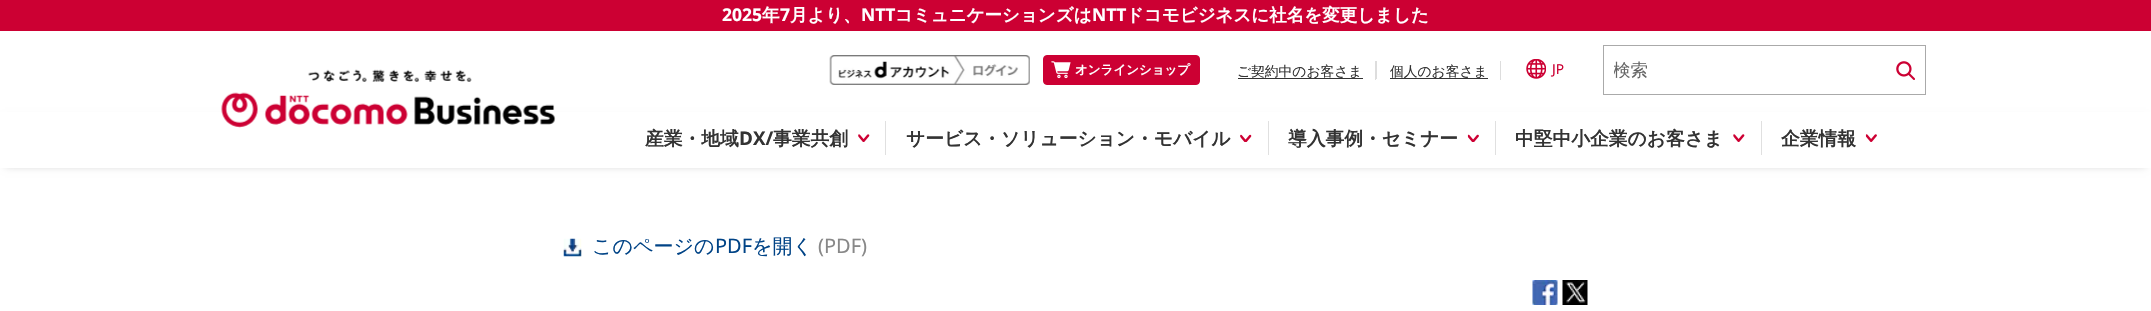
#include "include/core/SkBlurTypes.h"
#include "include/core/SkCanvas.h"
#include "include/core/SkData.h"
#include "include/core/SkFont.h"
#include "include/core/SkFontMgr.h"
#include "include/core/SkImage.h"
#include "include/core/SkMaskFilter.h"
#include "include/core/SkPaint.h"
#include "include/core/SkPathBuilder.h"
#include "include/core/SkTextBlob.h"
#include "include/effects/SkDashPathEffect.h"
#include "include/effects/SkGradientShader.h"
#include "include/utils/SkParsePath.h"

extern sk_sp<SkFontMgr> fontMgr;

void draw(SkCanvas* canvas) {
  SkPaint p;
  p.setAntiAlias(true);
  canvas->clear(SK_ColorWHITE);
  p.setColor(SkColorSetRGB(204, 0, 51));
  canvas->drawRect(SkRect::MakeLTRB(0, 0, 2151, 31), p);
  p.setColor(SkColorSetARGB(51, 0, 0, 0));
  p.setMaskFilter(SkMaskFilter::MakeBlur(kNormal_SkBlurStyle, 4));
  canvas->drawRect(SkRect::MakeLTRB(5, 119, 2146, 166), p);
  p.setMaskFilter(nullptr);
  p.setColor(SK_ColorWHITE);
  canvas->drawRect(SkRect::MakeLTRB(0, 112, 2151, 168), p);
  canvas->drawImageRect(SkImages::DeferredFromEncodedData(SkData::MakeFromFileName("images/1.png")), SkRect::MakeLTRB(221, 69, 556, 128), SkSamplingOptions());
  canvas->drawImageRect(SkImages::DeferredFromEncodedData(SkData::MakeFromFileName("images/2.png")), SkRect::MakeLTRB(829, 55, 1030, 85), SkSamplingOptions());
  p.setColor(SkColorSetRGB(204, 0, 51));
  canvas->drawRoundRect(SkRect::MakeLTRB(1043.5f, 55.5f, 1199.5f, 84.5f), 3.5f, 3.5f, p);
  p.setStyle(SkPaint::kStroke_Style);
  p.setStrokeWidth(1);
  canvas->drawRoundRect(SkRect::MakeLTRB(1043.5f, 55.5f, 1199.5f, 84.5f), 3.5f, 3.5f, p);
  canvas->drawImageRect(SkImages::DeferredFromEncodedData(SkData::MakeFromFileName("images/3.png")), SkRect::MakeLTRB(1051, 61, 1071, 79), SkSamplingOptions());
  p.setStyle(SkPaint::kFill_Style);
  p.setColor(SkColorSetRGB(221, 221, 221));
  canvas->drawRect(SkRect::MakeLTRB(1375, 61, 1376, 80), p);
  p.setColor(SkColorSetRGB(51, 51, 51));
  canvas->drawRect(SkRect::MakeLTRB(1238, 78, 1363, 79), p);
  p.setColor(SkColorSetRGB(221, 221, 221));
  canvas->drawRect(SkRect::MakeLTRB(1376, 61, 1377, 79), p);
  canvas->drawRect(SkRect::MakeLTRB(1500, 61, 1501, 80), p);
  p.setColor(SkColorSetRGB(51, 51, 51));
  canvas->drawRect(SkRect::MakeLTRB(1390, 78, 1488, 79), p);
  canvas->drawImageRect(SkImages::DeferredFromEncodedData(SkData::MakeFromFileName("images/4.png")), SkRect::MakeLTRB(1526, 59, 1546, 79), SkSamplingOptions());
  p.setStyle(SkPaint::kStroke_Style);
  p.setColor(SkColorSetRGB(170, 170, 170));
  canvas->drawRect(SkRect::MakeLTRB(1603.5f, 45.5f, 1925.5f, 94.5f), p);
  canvas->drawImageRect(SkImages::DeferredFromEncodedData(SkData::MakeFromFileName("images/5.png")), SkRect::MakeLTRB(1896, 61, 1915, 80), SkSamplingOptions());
  canvas->drawImageRect(SkImages::DeferredFromEncodedData(SkData::MakeFromFileName("images/6.png")), SkRect::MakeLTRB(858, 134, 870, 142), SkSamplingOptions());
  p.setStyle(SkPaint::kFill_Style);
  p.setColor(SkColorSetRGB(224, 224, 224));
  canvas->drawRect(SkRect::MakeLTRB(885, 121, 886, 155), p);
  canvas->drawImageRect(SkImages::DeferredFromEncodedData(SkData::MakeFromFileName("images/7.png")), SkRect::MakeLTRB(1240, 134, 1252, 142), SkSamplingOptions());
  canvas->drawRect(SkRect::MakeLTRB(1268, 121, 1269, 155), p);
  canvas->drawImageRect(SkImages::DeferredFromEncodedData(SkData::MakeFromFileName("images/8.png")), SkRect::MakeLTRB(1467, 134, 1479, 142), SkSamplingOptions());
  canvas->drawRect(SkRect::MakeLTRB(1495, 121, 1496, 155), p);
  canvas->drawImageRect(SkImages::DeferredFromEncodedData(SkData::MakeFromFileName("images/9.png")), SkRect::MakeLTRB(1733, 134, 1745, 142), SkSamplingOptions());
  canvas->drawRect(SkRect::MakeLTRB(1761, 121, 1762, 155), p);
  canvas->drawImageRect(SkImages::DeferredFromEncodedData(SkData::MakeFromFileName("images/10.png")), SkRect::MakeLTRB(1865, 134, 1877, 142), SkSamplingOptions());
  canvas->drawImageRect(SkImages::DeferredFromEncodedData(SkData::MakeFromFileName("images/11.png")), SkRect::MakeLTRB(563, 238, 582, 257), SkSamplingOptions());
  canvas->drawImageRect(SkImages::DeferredFromEncodedData(SkData::MakeFromFileName("images/12.png")), SkRect::MakeLTRB(1532, 280, 1558, 305), SkSamplingOptions());
  canvas->drawImageRect(SkImages::DeferredFromEncodedData(SkData::MakeFromFileName("images/13.png")), SkRect::MakeLTRB(1562, 280, 1588, 305), SkSamplingOptions());
  SkFont font1(fontMgr->matchFamilyStyle("Noto Sans", SkFontStyle::Bold()), 17.5f);
  font1.setSubpixel(true);
  p.setColor(SK_ColorWHITE);
  canvas->drawString("2025", 722, 21, font1, p);
  SkFont font2(fontMgr->matchFamilyStyle("WenQuanYi Zen Hei", SkFontStyle::Bold()), 17.5f);
  font2.setSubpixel(true);
  canvas->drawString("年", 762, 21, font2, p);
  canvas->drawString("7", 780, 21, font1, p);
  canvas->drawString("月より、", 790, 21, font2, p);
  canvas->drawString("NTT", 861, 21, font1, p);
  canvas->drawString("コミュニケーションズは", 895, 21, font2, p);
  canvas->drawString("NTT", 1092, 21, font1, p);
  canvas->drawString("ドコモビジネスに社名を変更しました", 1126, 21, font2, p);
  SkFont font3(fontMgr->matchFamilyStyle("WenQuanYi Zen Hei", SkFontStyle::Bold()), 12.5f);
  font3.setSubpixel(true);
  canvas->drawString("オンラインショップ", 1075, 74, font3, p);
  SkFont font4(fontMgr->matchFamilyStyle("WenQuanYi Zen Hei", SkFontStyle(500, SkFontStyle::kNormal_Width, SkFontStyle::kUpright_Slant)), 13.75f);
  font4.setSubpixel(true);
  p.setColor(SkColorSetRGB(51, 51, 51));
  canvas->drawString("ご契約中のお客さま", 1237, 76, font4, p);
  canvas->drawString("個人のお客さま", 1390, 76, font4, p);
  SkFont font5(fontMgr->matchFamilyStyle("Noto Sans", SkFontStyle::Normal()), 13.75f);
  font5.setSubpixel(true);
  p.setColor(SkColorSetRGB(204, 0, 51));
  canvas->drawString("JP", 1552, 74, font5, p);
  canvas->save();
  canvas->clipRect(SkRect::MakeLTRB(1614, 60, 1888, 83));
  SkFont font6(fontMgr->matchFamilyStyle("WenQuanYi Zen Hei", SkFontStyle(500, SkFontStyle::kNormal_Width, SkFontStyle::kUpright_Slant)), 17.5f);
  font6.setSubpixel(true);
  p.setColor(SkColorSetRGB(102, 102, 102));
  canvas->drawString("検索", 1613, 76, font6, p);
  canvas->restore();
  SkFont font7(fontMgr->matchFamilyStyle("WenQuanYi Zen Hei", SkFontStyle::Bold()), 18.75f);
  font7.setSubpixel(true);
  p.setColor(SkColorSetRGB(51, 51, 51));
  canvas->drawString("産業・地域", 645, 145, font7, p);
  SkFont font8(fontMgr->matchFamilyStyle("Noto Sans", SkFontStyle::Bold()), 18.75f);
  font8.setSubpixel(true);
  canvas->drawString("DX/", 739, 145, font8, p);
  canvas->drawString("事業共創", 773, 145, font7, p);
  canvas->drawString("サービス・ソリューション・モバイル", 906, 145, font7, p);
  canvas->drawString("導入事例・セミナー", 1288, 145, font7, p);
  canvas->drawString("中堅中小企業のお客さま", 1515, 145, font7, p);
  canvas->drawString("企業情報", 1781, 145, font7, p);
  SkFont font9(fontMgr->matchFamilyStyle("WenQuanYi Zen Hei", SkFontStyle(500, SkFontStyle::kNormal_Width, SkFontStyle::kUpright_Slant)), 20);
  font9.setSubpixel(true);
  p.setColor(SkColorSetRGB(0, 67, 134));
  canvas->drawString("このページの", 592, 253, font9, p);
  SkFont font10(fontMgr->matchFamilyStyle("Noto Sans", SkFontStyle::Normal()), 20);
  font10.setSubpixel(true);
  canvas->drawString("PDF", 715, 253, font10, p);
  canvas->drawString("を開く", 752, 253, font9, p);
  p.setColor(SkColorSetRGB(136, 136, 136));
  canvas->drawString("(PDF)", 818, 253, font10, p);
}
